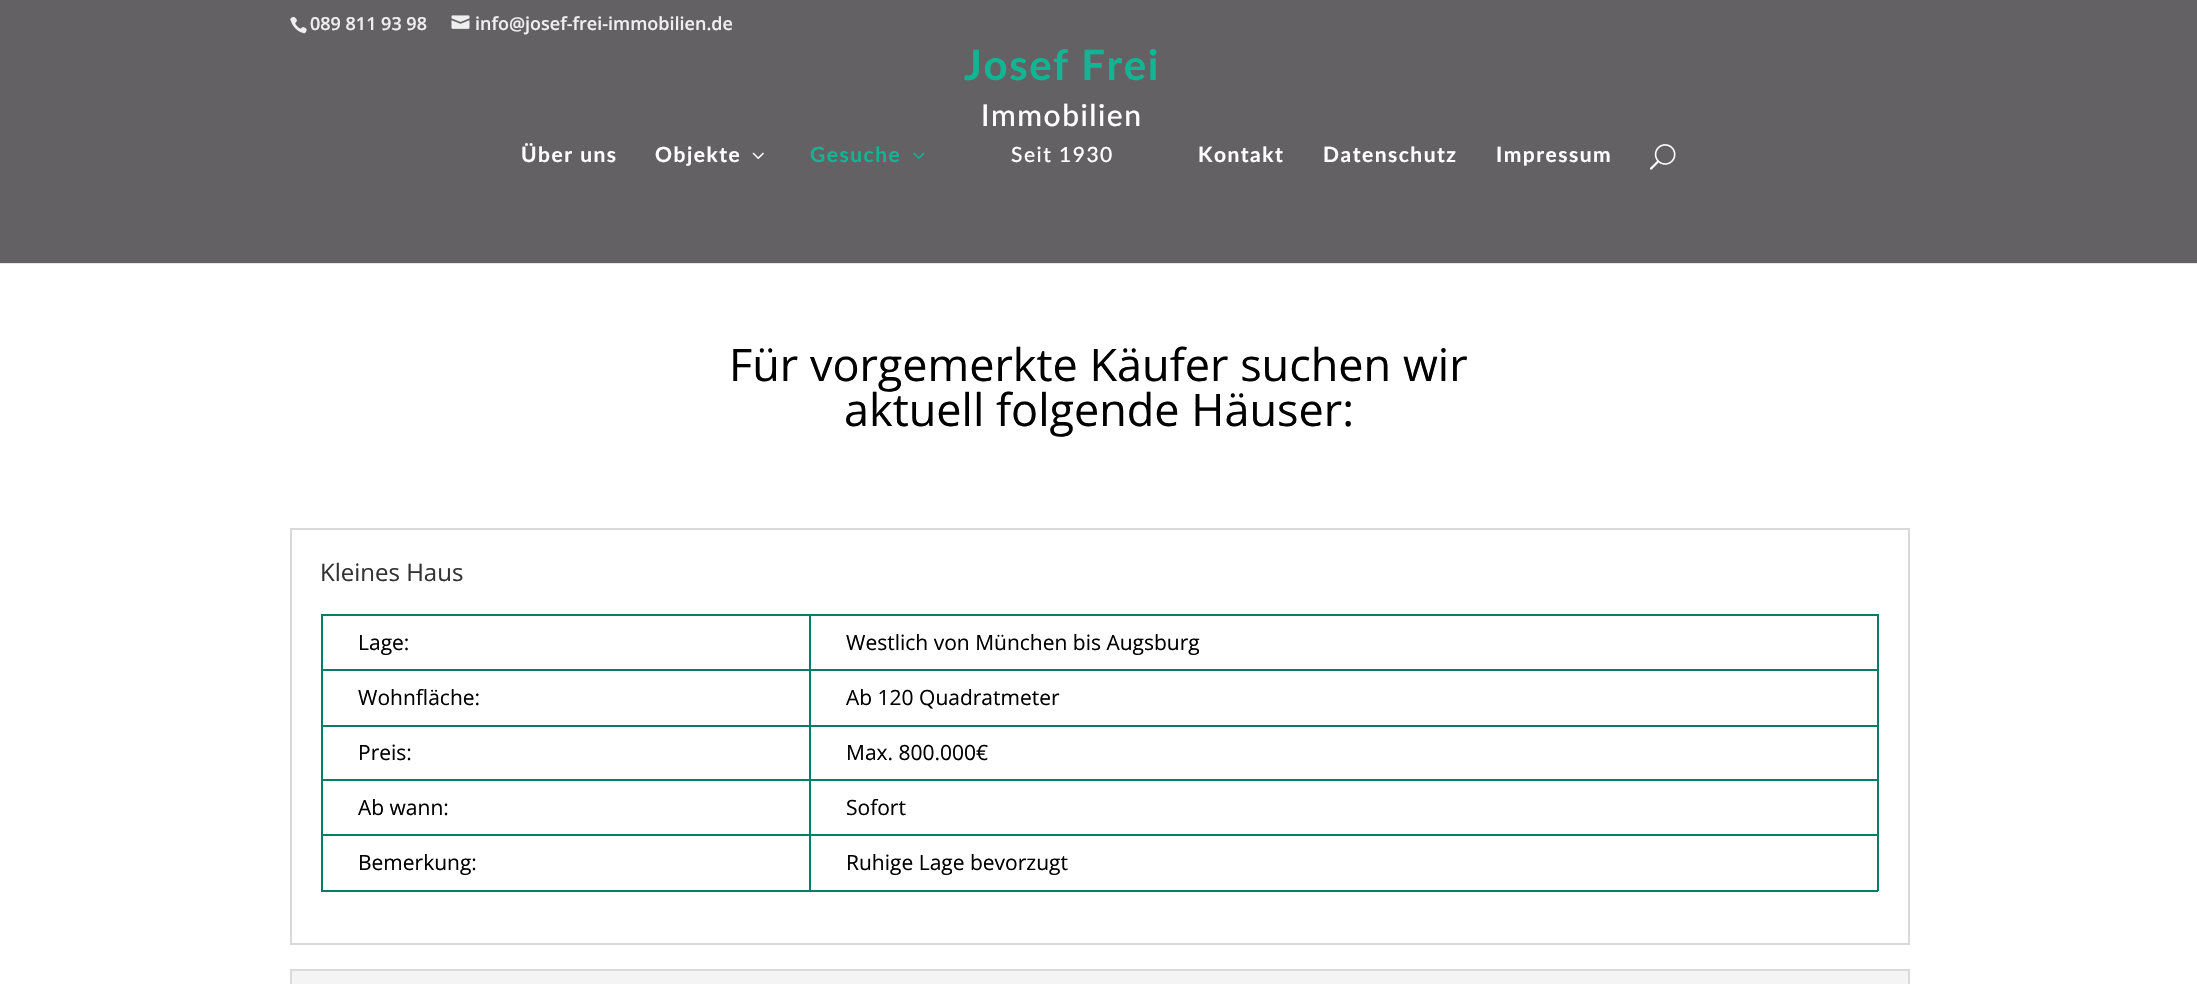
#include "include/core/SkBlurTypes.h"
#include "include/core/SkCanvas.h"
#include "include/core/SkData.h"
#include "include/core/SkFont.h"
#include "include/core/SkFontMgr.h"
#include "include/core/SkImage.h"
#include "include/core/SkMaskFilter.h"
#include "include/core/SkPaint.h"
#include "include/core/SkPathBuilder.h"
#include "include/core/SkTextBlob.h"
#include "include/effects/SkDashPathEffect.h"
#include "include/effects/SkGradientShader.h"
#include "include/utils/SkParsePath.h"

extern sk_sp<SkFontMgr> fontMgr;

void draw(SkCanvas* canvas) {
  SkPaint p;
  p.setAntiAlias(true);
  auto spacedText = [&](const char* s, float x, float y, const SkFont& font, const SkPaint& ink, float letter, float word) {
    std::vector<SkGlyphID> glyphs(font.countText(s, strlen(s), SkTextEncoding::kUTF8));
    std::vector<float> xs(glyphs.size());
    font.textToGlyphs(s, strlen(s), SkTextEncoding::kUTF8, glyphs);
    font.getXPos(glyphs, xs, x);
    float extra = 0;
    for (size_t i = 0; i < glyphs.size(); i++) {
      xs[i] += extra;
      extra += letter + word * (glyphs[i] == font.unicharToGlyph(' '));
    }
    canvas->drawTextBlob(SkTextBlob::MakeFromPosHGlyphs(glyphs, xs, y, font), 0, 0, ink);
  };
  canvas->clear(SK_ColorWHITE);
  p.setColor(SkColorSetRGB(230, 230, 230));
  canvas->drawPath(SkPathBuilder().moveTo(0, 262).lineTo(0, 264).lineTo(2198, 264).lineTo(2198, 48).lineTo(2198, 262).close().detach(), p);
  p.setColor(SkColorSetRGB(99, 97, 99));
  canvas->drawRect(SkRect::MakeLTRB(0, 0, 2197, 263), p);
  canvas->drawImageRect(SkImages::DeferredFromEncodedData(SkData::MakeFromFileName("images/1.png")), SkRect::MakeLTRB(290, 16, 307, 34), SkSamplingOptions());
  canvas->drawImageRect(SkImages::DeferredFromEncodedData(SkData::MakeFromFileName("images/2.png")), SkRect::MakeLTRB(451, 15, 470, 29), SkSamplingOptions());
  canvas->drawImageRect(SkImages::DeferredFromEncodedData(SkData::MakeFromFileName("images/3.png")), SkRect::MakeLTRB(752, 152, 764, 159), SkSamplingOptions());
  canvas->drawImageRect(SkImages::DeferredFromEncodedData(SkData::MakeFromFileName("images/4.png")), SkRect::MakeLTRB(913, 152, 925, 159), SkSamplingOptions());
  canvas->drawImageRect(SkImages::DeferredFromEncodedData(SkData::MakeFromFileName("images/5.png")), SkRect::MakeLTRB(1649, 144, 1676, 170), SkSamplingOptions());
  p.setStyle(SkPaint::kStroke_Style);
  p.setStrokeWidth(2);
  p.setColor(SkColorSetRGB(217, 217, 217));
  canvas->drawRect(SkRect::MakeLTRB(291, 529, 1909, 944), p);
  p.setStyle(SkPaint::kFill_Style);
  p.setColor(SkColorSetRGB(11, 125, 102));
  canvas->drawRect(SkRect::MakeLTRB(809, 614, 1878, 616), p);
  canvas->drawRect(SkRect::MakeLTRB(809, 669, 1878, 671), p);
  canvas->drawRect(SkRect::MakeLTRB(809, 725, 1878, 727), p);
  canvas->drawRect(SkRect::MakeLTRB(809, 779, 1878, 781), p);
  canvas->drawRect(SkRect::MakeLTRB(809, 834, 1878, 836), p);
  canvas->drawRect(SkRect::MakeLTRB(1877, 834, 1879, 891), p);
  canvas->drawRect(SkRect::MakeLTRB(809, 890, 1878, 892), p);
  canvas->drawRect(SkRect::MakeLTRB(809, 834, 811, 891), p);
  canvas->drawRect(SkRect::MakeLTRB(321, 834, 810, 836), p);
  canvas->drawRect(SkRect::MakeLTRB(809, 779, 811, 836), p);
  canvas->drawRect(SkRect::MakeLTRB(321, 779, 810, 781), p);
  canvas->drawRect(SkRect::MakeLTRB(809, 725, 811, 780), p);
  canvas->drawRect(SkRect::MakeLTRB(321, 725, 810, 727), p);
  canvas->drawRect(SkRect::MakeLTRB(809, 669, 811, 726), p);
  canvas->drawRect(SkRect::MakeLTRB(321, 669, 810, 671), p);
  canvas->drawRect(SkRect::MakeLTRB(809, 614, 811, 671), p);
  canvas->drawRect(SkRect::MakeLTRB(321, 614, 810, 616), p);
  canvas->drawRect(SkRect::MakeLTRB(321, 890, 810, 892), p);
  canvas->drawRect(SkRect::MakeLTRB(321, 834, 323, 891), p);
  canvas->drawRect(SkRect::MakeLTRB(321, 779, 323, 836), p);
  canvas->drawRect(SkRect::MakeLTRB(321, 725, 323, 780), p);
  canvas->drawRect(SkRect::MakeLTRB(321, 669, 323, 726), p);
  canvas->drawRect(SkRect::MakeLTRB(321, 614, 323, 671), p);
  canvas->drawRect(SkRect::MakeLTRB(1877, 779, 1879, 836), p);
  canvas->drawRect(SkRect::MakeLTRB(1877, 725, 1879, 780), p);
  canvas->drawRect(SkRect::MakeLTRB(1877, 669, 1879, 726), p);
  canvas->drawRect(SkRect::MakeLTRB(1877, 614, 1879, 671), p);
  p.setColor(SkColorSetRGB(244, 244, 244));
  canvas->drawRect(SkRect::MakeLTRB(291, 970, 1909, 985), p);
  p.setStyle(SkPaint::kStroke_Style);
  p.setColor(SkColorSetRGB(217, 217, 217));
  canvas->drawRect(SkRect::MakeLTRB(291, 970, 1909, 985), p);
  SkFont font1(fontMgr->matchFamilyStyle("Open Sans", SkFontStyle(600, SkFontStyle::kNormal_Width, SkFontStyle::kUpright_Slant)), 18);
  font1.setSubpixel(true);
  p.setStyle(SkPaint::kFill_Style);
  p.setColor(SkColorSetRGB(239, 239, 239));
  canvas->drawString("089 811 93 98", 310, 30, font1, p);
  canvas->drawString("info@josef-frei-immobilien.de", 475, 30, font1, p);
  SkFont font2(fontMgr->matchFamilyStyle("Lato", SkFontStyle::Bold()), 21);
  font2.setSubpixel(true);
  p.setColor(SK_ColorWHITE);
  spacedText("Über uns", 521, 162, font2, p, 1.5f, 0);
  spacedText("Objekte", 655, 162, font2, p, 1.5f, 0);
  p.setColor(SkColorSetRGB(16, 182, 148));
  spacedText("Gesuche", 810, 162, font2, p, 1.5f, 0);
  SkFont font3(fontMgr->matchFamilyStyle("Lato", SkFontStyle::Bold()), 42);
  font3.setSubpixel(true);
  spacedText("Josef Frei", 964, 80, font3, p, 1.5f, 0);
  SkFont font4(fontMgr->matchFamilyStyle("Lato", SkFontStyle(500, SkFontStyle::kNormal_Width, SkFontStyle::kUpright_Slant)), 30);
  font4.setSubpixel(true);
  p.setColor(SK_ColorWHITE);
  spacedText("Immobilien", 981, 126, font4, p, 1.5f, 0);
  SkFont font5(fontMgr->matchFamilyStyle("Lato", SkFontStyle(500, SkFontStyle::kNormal_Width, SkFontStyle::kUpright_Slant)), 21);
  font5.setSubpixel(true);
  spacedText("Seit 1930", 1011, 162, font5, p, 1.5f, 0);
  spacedText("Kontakt", 1198, 162, font2, p, 1.5f, 0);
  spacedText("Datenschutz", 1323, 162, font2, p, 1.5f, 0);
  spacedText("Impressum", 1496, 162, font2, p, 1.5f, 0);
  SkFont font6(fontMgr->matchFamilyStyle("Open Sans", SkFontStyle::Normal()), 45);
  font6.setSubpixel(true);
  p.setColor(SK_ColorBLACK);
  canvas->drawString("Für vorgemerkte Käufer suchen wir", 729, 381, font6, p);
  canvas->drawString("aktuell folgende Häuser:", 844, 426, font6, p);
  SkFont font7(fontMgr->matchFamilyStyle("Open Sans", SkFontStyle::Normal()), 24);
  font7.setSubpixel(true);
  p.setColor(SkColorSetRGB(51, 51, 51));
  canvas->drawString("Kleines Haus", 320, 581, font7, p);
  SkFont font8(fontMgr->matchFamilyStyle("Open Sans", SkFontStyle::Normal()), 21);
  font8.setSubpixel(true);
  p.setColor(SK_ColorBLACK);
  canvas->drawString("Lage:", 358, 650, font8, p);
  canvas->drawString("Westlich von München bis Augsburg", 846, 650, font8, p);
  canvas->drawString("Wohnfläche:", 358, 705, font8, p);
  canvas->drawString("Ab 120 Quadratmeter", 846, 705, font8, p);
  canvas->drawString("Preis:", 358, 760, font8, p);
  canvas->drawString("Max. 800.000€", 846, 760, font8, p);
  canvas->drawString("Ab wann:", 358, 815, font8, p);
  canvas->drawString("Sofort", 846, 815, font8, p);
  canvas->drawString("Bemerkung:", 358, 870, font8, p);
  canvas->drawString("Ruhige Lage bevorzugt", 846, 870, font8, p);
}
